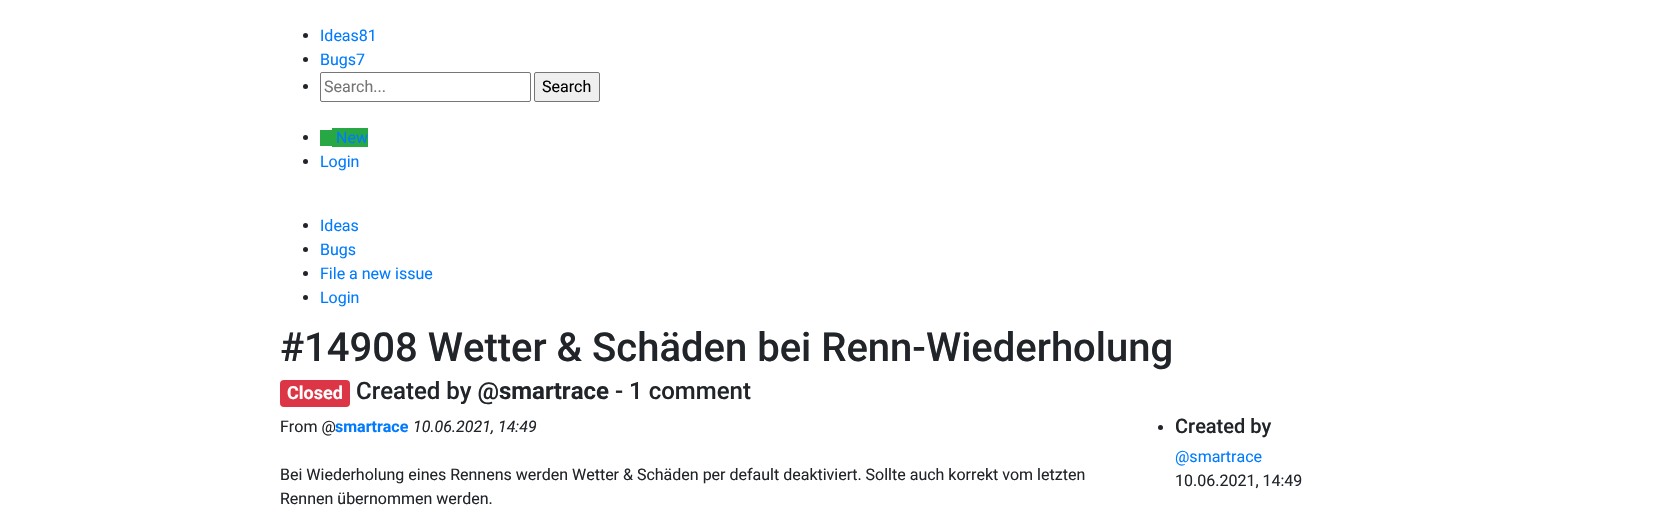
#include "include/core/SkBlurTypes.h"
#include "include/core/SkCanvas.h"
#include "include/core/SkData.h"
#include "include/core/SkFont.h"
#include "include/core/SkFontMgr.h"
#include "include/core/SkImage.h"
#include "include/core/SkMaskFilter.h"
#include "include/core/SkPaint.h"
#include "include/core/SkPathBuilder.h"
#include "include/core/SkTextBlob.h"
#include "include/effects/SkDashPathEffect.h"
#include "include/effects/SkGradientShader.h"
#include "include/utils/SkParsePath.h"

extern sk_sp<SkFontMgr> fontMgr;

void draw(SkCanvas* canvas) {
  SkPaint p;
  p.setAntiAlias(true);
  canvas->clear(SK_ColorWHITE);
  p.setColor(SkColorSetRGB(33, 37, 41));
  canvas->drawCircle(305.5f, 35.5f, 2.5f, p);
  canvas->drawCircle(305.5f, 59.5f, 2.5f, p);
  canvas->drawCircle(305.5f, 86.5f, 2.5f, p);
  p.setStyle(SkPaint::kStroke_Style);
  p.setStrokeWidth(1);
  p.setColor(SkColorSetRGB(118, 118, 118));
  canvas->drawRoundRect(SkRect::MakeLTRB(320.5f, 72.5f, 530.5f, 101.5f), 1.5f, 1.5f, p);
  p.setStyle(SkPaint::kFill_Style);
  p.setColor(SkColorSetRGB(239, 239, 239));
  canvas->drawRoundRect(SkRect::MakeLTRB(534.5f, 72.5f, 599.5f, 101.5f), 1.5f, 1.5f, p);
  p.setStyle(SkPaint::kStroke_Style);
  p.setColor(SkColorSetRGB(118, 118, 118));
  canvas->drawRoundRect(SkRect::MakeLTRB(534.5f, 72.5f, 599.5f, 101.5f), 1.5f, 1.5f, p);
  p.setStyle(SkPaint::kFill_Style);
  p.setColor(SkColorSetRGB(33, 37, 41));
  canvas->drawCircle(305.5f, 137.5f, 2.5f, p);
  p.setColor(SkColorSetRGB(40, 167, 69));
  canvas->drawRect(SkRect::MakeLTRB(320, 130, 332, 146), p);
  canvas->drawRect(SkRect::MakeLTRB(332, 128, 368, 147), p);
  p.setColor(SkColorSetRGB(33, 37, 41));
  canvas->drawCircle(305.5f, 161.5f, 2.5f, p);
  canvas->drawCircle(305.5f, 225.5f, 2.5f, p);
  canvas->drawCircle(305.5f, 249.5f, 2.5f, p);
  canvas->drawCircle(305.5f, 273.5f, 2.5f, p);
  canvas->drawCircle(305.5f, 297.5f, 2.5f, p);
  p.setColor(SkColorSetRGB(220, 53, 69));
  canvas->drawRoundRect(SkRect::MakeLTRB(280, 380, 350, 407), 4, 4, p);
  p.setColor(SkColorSetRGB(33, 37, 41));
  canvas->drawCircle(1160.5f, 427.5f, 2.5f, p);
  SkFont font1(fontMgr->matchFamilyStyle("Roboto", SkFontStyle::Normal()), 16);
  font1.setSubpixel(true);
  p.setColor(SkColorSetRGB(0, 123, 255));
  canvas->drawString("Ideas81", 320, 41, font1, p);
  canvas->drawString("Bugs7", 320, 65, font1, p);
  p.setColor(SkColorSetRGB(117, 117, 117));
  canvas->drawString("Search...", 324, 92, font1, p);
  p.setColor(SK_ColorBLACK);
  canvas->drawString("Search", 542, 92, font1, p);
  p.setColor(SkColorSetRGB(0, 123, 255));
  canvas->drawString("New", 336, 143, font1, p);
  canvas->drawString("Login", 320, 167, font1, p);
  canvas->drawString("Ideas", 320, 231, font1, p);
  canvas->drawString("Bugs", 320, 255, font1, p);
  canvas->drawString("File a new issue", 320, 279, font1, p);
  canvas->drawString("Login", 320, 303, font1, p);
  SkFont font2(fontMgr->matchFamilyStyle("Roboto", SkFontStyle(500, SkFontStyle::kNormal_Width, SkFontStyle::kUpright_Slant)), 40);
  font2.setSubpixel(true);
  p.setColor(SkColorSetRGB(33, 37, 41));
  canvas->drawString("#14908 Wetter & Schäden bei Renn-Wiederholung", 280, 361, font2, p);
  SkFont font3(fontMgr->matchFamilyStyle("Roboto", SkFontStyle::Bold()), 18);
  font3.setSubpixel(true);
  p.setColor(SK_ColorWHITE);
  canvas->drawString("Closed", 287, 399, font3, p);
  SkFont font4(fontMgr->matchFamilyStyle("Roboto", SkFontStyle(500, SkFontStyle::kNormal_Width, SkFontStyle::kUpright_Slant)), 24);
  font4.setSubpixel(true);
  p.setColor(SkColorSetRGB(33, 37, 41));
  canvas->drawString("Created by @", 356, 399, font4, p);
  SkFont font5(fontMgr->matchFamilyStyle("Roboto", SkFontStyle::Bold()), 24);
  font5.setSubpixel(true);
  canvas->drawString("smartrace", 499, 399, font5, p);
  canvas->drawString("- 1 comment", 615, 399, font4, p);
  canvas->drawString("From @", 280, 432, font1, p);
  SkFont font6(fontMgr->matchFamilyStyle("Roboto", SkFontStyle::Bold()), 16);
  font6.setSubpixel(true);
  p.setColor(SkColorSetRGB(0, 123, 255));
  canvas->drawString("smartrace", 335, 432, font6, p);
  SkFont font7(fontMgr->matchFamilyStyle("Roboto", SkFontStyle::Italic()), 16);
  font7.setSubpixel(true);
  p.setColor(SkColorSetRGB(33, 37, 41));
  canvas->drawString("10.06.2021, 14:49", 413, 432, font7, p);
  canvas->drawString("Bei Wiederholung eines Rennens werden Wetter & Schäden per default deaktiviert. Sollte auch korrekt vom letzten", 280, 480, font1, p);
  canvas->drawString("Rennen übernommen werden.", 280, 504, font1, p);
  SkFont font8(fontMgr->matchFamilyStyle("Roboto", SkFontStyle(500, SkFontStyle::kNormal_Width, SkFontStyle::kUpright_Slant)), 20);
  font8.setSubpixel(true);
  canvas->drawString("Created by", 1175, 433, font8, p);
  p.setColor(SkColorSetRGB(0, 123, 255));
  canvas->drawString("@smartrace", 1175, 462, font1, p);
  p.setColor(SkColorSetRGB(33, 37, 41));
  canvas->drawString("10.06.2021, 14:49", 1175, 486, font1, p);
}
